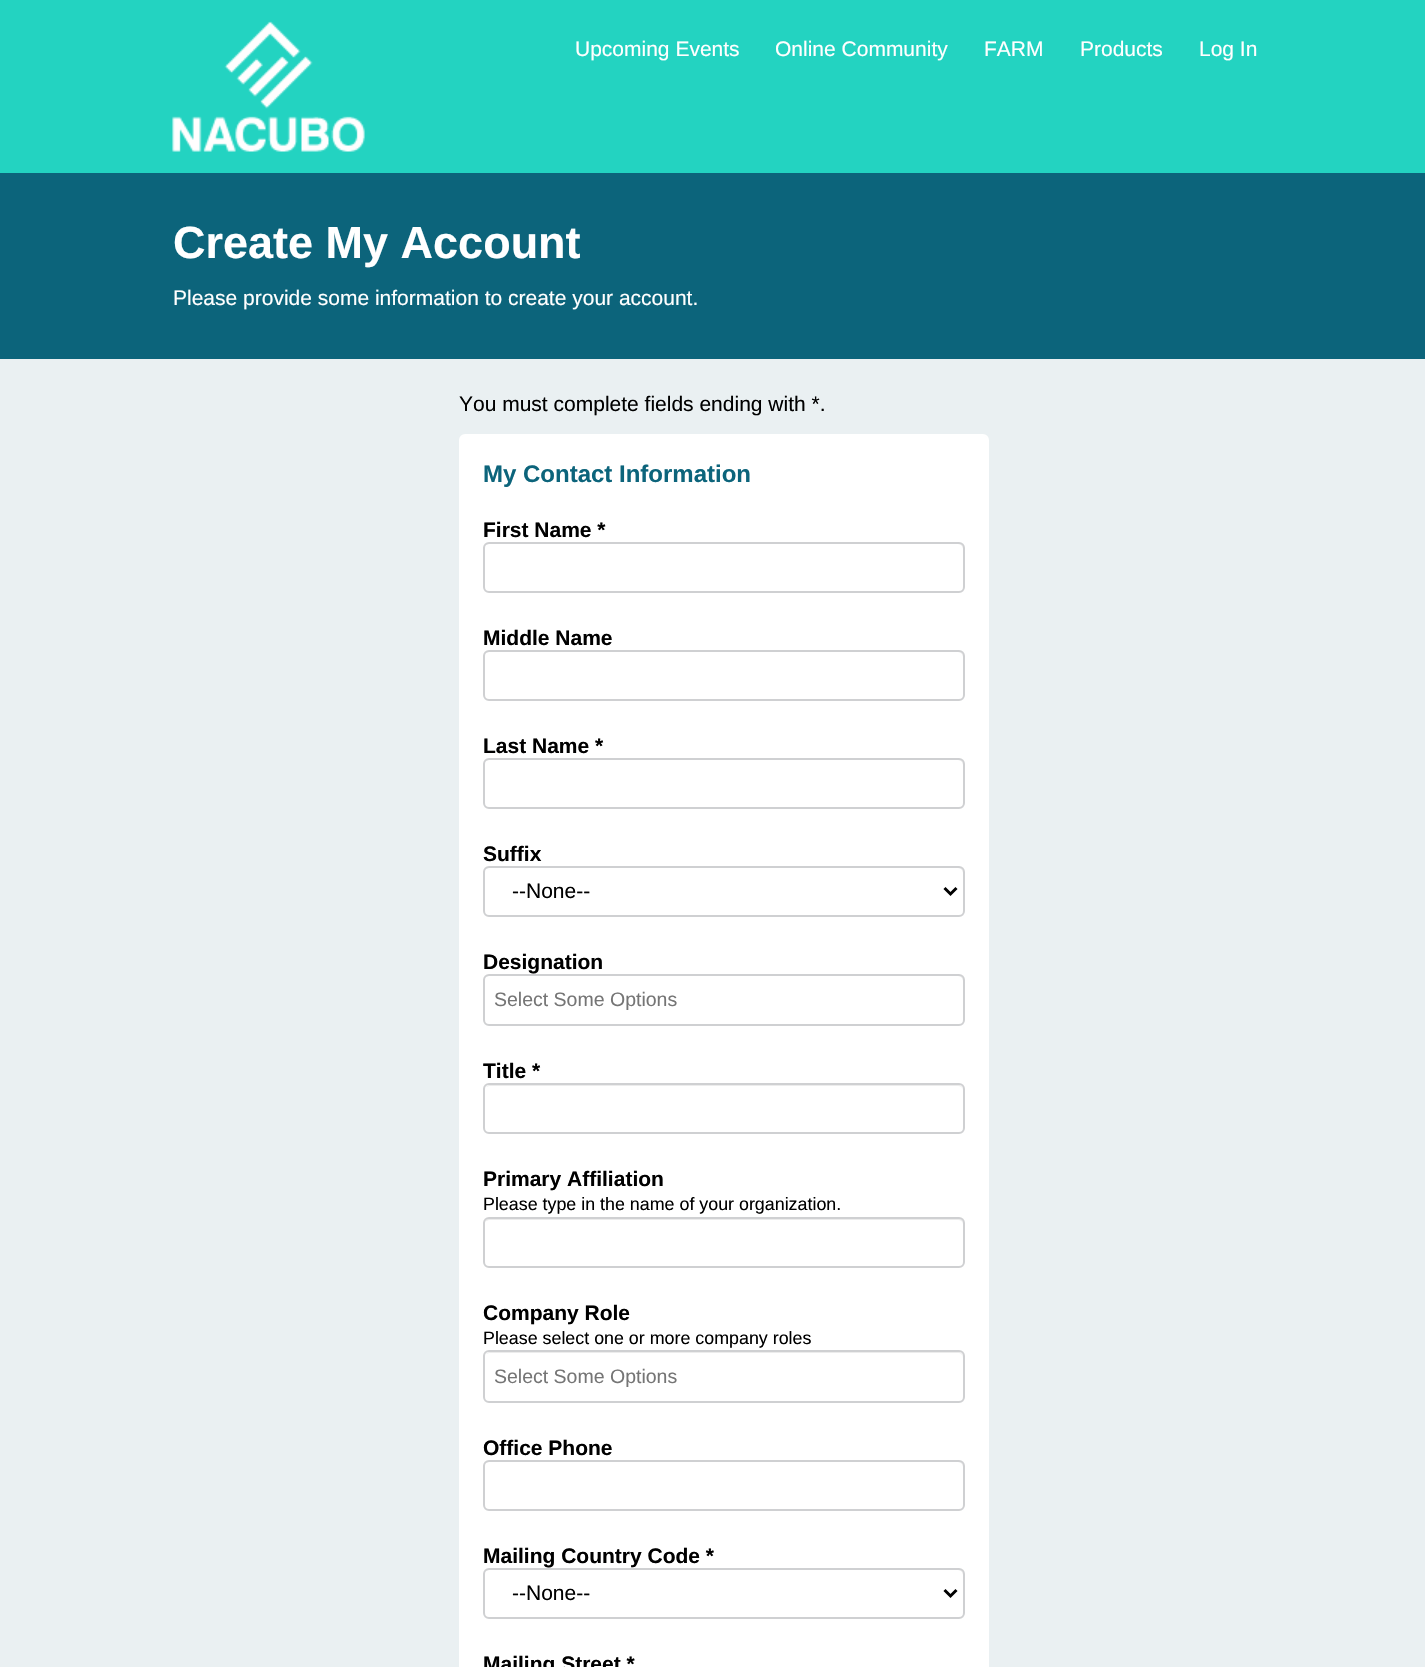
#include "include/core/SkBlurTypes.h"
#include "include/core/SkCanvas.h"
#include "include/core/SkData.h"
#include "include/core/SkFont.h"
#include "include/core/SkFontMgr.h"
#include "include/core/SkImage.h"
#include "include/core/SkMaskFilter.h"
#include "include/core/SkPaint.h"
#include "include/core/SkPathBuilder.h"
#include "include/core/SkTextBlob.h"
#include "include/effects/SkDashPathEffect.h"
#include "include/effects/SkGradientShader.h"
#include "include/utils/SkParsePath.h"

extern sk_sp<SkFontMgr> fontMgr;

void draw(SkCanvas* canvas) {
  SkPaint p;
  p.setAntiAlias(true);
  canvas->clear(SkColorSetRGB(234, 240, 242));
  p.setColor(SkColorSetRGB(35, 211, 193));
  canvas->drawRect(SkRect::MakeLTRB(0, 0, 1425, 173), p);
  canvas->drawImageRect(SkImages::DeferredFromEncodedData(SkData::MakeFromFileName("images/1.png")), SkRect::MakeLTRB(172, 21, 365, 152), SkSamplingOptions());
  p.setColor(SkColorSetRGB(12, 100, 123));
  canvas->drawRect(SkRect::MakeLTRB(0, 173, 1425, 359), p);
  p.setColor(SK_ColorWHITE);
  canvas->drawRoundRect(SkRect::MakeLTRB(460, 435, 988, 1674), 5, 5, p);
  p.setStyle(SkPaint::kStroke_Style);
  p.setStrokeWidth(2);
  canvas->drawRoundRect(SkRect::MakeLTRB(460, 435, 988, 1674), 5, 5, p);
  p.setStyle(SkPaint::kFill_Style);
  p.setColor(SkColorSetRGB(236, 236, 236));
  canvas->drawPath(SkPathBuilder().moveTo(489, 544).lineTo(958, 544).cubicTo(961, 544, 963, 547, 963, 549).lineTo(963, 548).cubicTo(963, 545, 961, 543, 958, 543).lineTo(490, 543).cubicTo(488, 543, 486, 544, 485, 546).cubicTo(486, 545, 488, 544, 489, 544).close().detach(), p);
  p.setStyle(SkPaint::kStroke_Style);
  p.setColor(SkColorSetRGB(207, 208, 210));
  canvas->drawRoundRect(SkRect::MakeLTRB(484, 543, 964, 592), 5, 5, p);
  p.setStyle(SkPaint::kFill_Style);
  p.setColor(SkColorSetRGB(236, 236, 236));
  canvas->drawPath(SkPathBuilder().moveTo(489, 652).lineTo(958, 652).cubicTo(961, 652, 963, 655, 963, 657).lineTo(963, 656).cubicTo(963, 653, 961, 651, 958, 651).lineTo(490, 651).cubicTo(488, 651, 486, 652, 485, 654).cubicTo(486, 653, 488, 652, 489, 652).close().detach(), p);
  p.setStyle(SkPaint::kStroke_Style);
  p.setColor(SkColorSetRGB(207, 208, 210));
  canvas->drawRoundRect(SkRect::MakeLTRB(484, 651, 964, 700), 5, 5, p);
  p.setStyle(SkPaint::kFill_Style);
  p.setColor(SkColorSetRGB(236, 236, 236));
  canvas->drawPath(SkPathBuilder().moveTo(489, 760).lineTo(958, 760).cubicTo(961, 760, 963, 763, 963, 765).lineTo(963, 764).cubicTo(963, 761, 961, 759, 958, 759).lineTo(490, 759).cubicTo(488, 759, 486, 760, 485, 762).cubicTo(486, 761, 488, 760, 489, 760).close().detach(), p);
  p.setStyle(SkPaint::kStroke_Style);
  p.setColor(SkColorSetRGB(207, 208, 210));
  canvas->drawRoundRect(SkRect::MakeLTRB(484, 759, 964, 808), 5, 5, p);
  p.setStyle(SkPaint::kFill_Style);
  p.setColor(SkColorSetRGB(236, 236, 236));
  canvas->drawPath(SkPathBuilder().moveTo(489, 868).lineTo(958, 868).cubicTo(961, 868, 963, 871, 963, 873).lineTo(963, 872).cubicTo(963, 869, 961, 867, 958, 867).lineTo(490, 867).cubicTo(488, 867, 486, 868, 485, 870).cubicTo(486, 869, 488, 868, 489, 868).close().detach(), p);
  p.setStyle(SkPaint::kStroke_Style);
  p.setColor(SkColorSetRGB(207, 208, 210));
  canvas->drawRoundRect(SkRect::MakeLTRB(484, 867, 964, 916), 5, 5, p);
  p.setStrokeWidth(3);
  p.setColor(SK_ColorBLACK);
  canvas->drawPath(SkPathBuilder().moveTo(944.5f, 888).lineTo(950.5f, 894).lineTo(956.5f, 888).detach(), p);
  p.setStyle(SkPaint::kFill_Style);
  p.setColor(SkColorSetRGB(236, 236, 236));
  canvas->drawPath(SkPathBuilder().moveTo(489, 976).lineTo(958, 976).cubicTo(961, 976, 963, 979, 963, 981).lineTo(963, 980).cubicTo(963, 977, 961, 975, 958, 975).lineTo(490, 975).cubicTo(488, 975, 486, 976, 485, 978).cubicTo(486, 977, 488, 976, 489, 976).close().detach(), p);
  p.setStyle(SkPaint::kStroke_Style);
  p.setStrokeWidth(2);
  p.setColor(SkColorSetRGB(207, 208, 210));
  canvas->drawRoundRect(SkRect::MakeLTRB(484, 975, 964, 1025), 5, 5, p);
  p.setStyle(SkPaint::kFill_Style);
  p.setColor(SkColorSetRGB(236, 236, 236));
  canvas->drawPath(SkPathBuilder().moveTo(489, 1086).lineTo(958, 1086).cubicTo(961, 1086, 963, 1088, 963, 1090).cubicTo(963, 1087, 961, 1085, 958, 1085).lineTo(490, 1085).cubicTo(488, 1085, 487, 1086, 486, 1087).close().detach(), p);
  p.setStyle(SkPaint::kStroke_Style);
  p.setColor(SkColorSetRGB(207, 208, 210));
  canvas->drawRoundRect(SkRect::MakeLTRB(484, 1084, 964, 1133), 5, 5, p);
  p.setStyle(SkPaint::kFill_Style);
  p.setColor(SkColorSetRGB(236, 236, 236));
  canvas->drawPath(SkPathBuilder().moveTo(489, 1220).lineTo(958, 1220).cubicTo(961, 1220, 963, 1222, 963, 1224).lineTo(963, 1223).cubicTo(963, 1220, 961, 1218, 958, 1218).lineTo(490, 1218).cubicTo(488, 1218, 486, 1220, 485, 1222).cubicTo(486, 1221, 488, 1220, 489, 1220).close().detach(), p);
  p.setStyle(SkPaint::kStroke_Style);
  p.setColor(SkColorSetRGB(207, 208, 210));
  canvas->drawRoundRect(SkRect::MakeLTRB(484, 1218, 964, 1267), 5, 5, p);
  p.setStyle(SkPaint::kFill_Style);
  p.setColor(SkColorSetRGB(236, 236, 236));
  canvas->drawPath(SkPathBuilder().moveTo(489, 1353).lineTo(958, 1353).cubicTo(961, 1353, 963, 1355, 963, 1358).lineTo(963, 1357).cubicTo(963, 1354, 961, 1352, 958, 1352).lineTo(490, 1352).cubicTo(488, 1352, 487, 1353, 486, 1354).close().detach(), p);
  p.setStyle(SkPaint::kStroke_Style);
  p.setColor(SkColorSetRGB(207, 208, 210));
  canvas->drawRoundRect(SkRect::MakeLTRB(484, 1351, 964, 1402), 5, 5, p);
  p.setStyle(SkPaint::kFill_Style);
  p.setColor(SkColorSetRGB(236, 236, 236));
  canvas->drawPath(SkPathBuilder().moveTo(489, 1462).lineTo(958, 1462).cubicTo(961, 1462, 963, 1465, 963, 1467).lineTo(963, 1466).cubicTo(963, 1463, 961, 1461, 958, 1461).lineTo(490, 1461).cubicTo(488, 1461, 486, 1462, 485, 1464).cubicTo(486, 1463, 488, 1462, 489, 1462).close().detach(), p);
  p.setStyle(SkPaint::kStroke_Style);
  p.setColor(SkColorSetRGB(207, 208, 210));
  canvas->drawRoundRect(SkRect::MakeLTRB(484, 1461, 964, 1510), 5, 5, p);
  p.setStyle(SkPaint::kFill_Style);
  p.setColor(SkColorSetRGB(236, 236, 236));
  canvas->drawPath(SkPathBuilder().moveTo(489, 1570).lineTo(958, 1570).cubicTo(961, 1570, 963, 1573, 963, 1575).lineTo(963, 1574).cubicTo(963, 1571, 961, 1569, 958, 1569).lineTo(490, 1569).cubicTo(488, 1569, 486, 1570, 485, 1572).cubicTo(486, 1571, 488, 1570, 489, 1570).close().detach(), p);
  p.setStyle(SkPaint::kStroke_Style);
  p.setColor(SkColorSetRGB(207, 208, 210));
  canvas->drawRoundRect(SkRect::MakeLTRB(484, 1569, 964, 1618), 5, 5, p);
  p.setStrokeWidth(3);
  p.setColor(SK_ColorBLACK);
  canvas->drawPath(SkPathBuilder().moveTo(944.5f, 1590).lineTo(950.5f, 1596).lineTo(956.5f, 1590).detach(), p);
  SkFont font1(fontMgr->matchFamilyStyle("Liberation Sans", SkFontStyle::Normal()), 21);
  font1.setSubpixel(true);
  p.setStyle(SkPaint::kFill_Style);
  p.setColor(SK_ColorWHITE);
  canvas->drawString("Upcoming Events", 575, 56, font1, p);
  canvas->drawString("Online Community", 775, 56, font1, p);
  canvas->drawString("FARM", 984, 56, font1, p);
  canvas->drawString("Products", 1080, 56, font1, p);
  canvas->drawString("Log In", 1199, 56, font1, p);
  SkFont font2(fontMgr->matchFamilyStyle("Liberation Sans", SkFontStyle::Bold()), 45);
  font2.setSubpixel(true);
  canvas->drawString("Create My Account", 173, 258, font2, p);
  canvas->drawString("Please provide some information to create your account.", 173, 305, font1, p);
  p.setColor(SK_ColorBLACK);
  canvas->drawString("You must complete fields ending with *.", 459, 411, font1, p);
  SkFont font3(fontMgr->matchFamilyStyle("Liberation Sans", SkFontStyle::Bold()), 24);
  font3.setSubpixel(true);
  p.setColor(SkColorSetRGB(12, 100, 123));
  canvas->drawString("My Contact Information", 483, 482, font3, p);
  SkFont font4(fontMgr->matchFamilyStyle("Liberation Sans", SkFontStyle::Bold()), 21);
  font4.setSubpixel(true);
  p.setColor(SK_ColorBLACK);
  canvas->drawString("First Name *", 483, 537, font4, p);
  canvas->drawString("Middle Name", 483, 645, font4, p);
  canvas->drawString("Last Name *", 483, 753, font4, p);
  canvas->drawString("Suffix", 483, 861, font4, p);
  canvas->drawString("--None--", 512, 898, font1, p);
  canvas->drawString("Designation", 483, 969, font4, p);
  SkFont font5(fontMgr->matchFamilyStyle("Liberation Sans", SkFontStyle::Normal()), 19.5f);
  font5.setSubpixel(true);
  p.setColor(SkColorSetRGB(117, 117, 117));
  canvas->drawString("Select Some Options", 494, 1006, font5, p);
  p.setColor(SK_ColorBLACK);
  canvas->drawString("Title *", 483, 1078, font4, p);
  canvas->drawString("Primary Affiliation", 483, 1186, font4, p);
  SkFont font6(fontMgr->matchFamilyStyle("Liberation Sans", SkFontStyle::Normal()), 17.85f);
  font6.setSubpixel(true);
  canvas->drawString("Please type in the name of your organization.", 483, 1210, font6, p);
  canvas->drawString("Company Role", 483, 1320, font4, p);
  canvas->drawString("Please select one or more company roles", 483, 1344, font6, p);
  p.setColor(SkColorSetRGB(117, 117, 117));
  canvas->drawString("Select Some Options", 494, 1383, font5, p);
  p.setColor(SK_ColorBLACK);
  canvas->drawString("Office Phone", 483, 1455, font4, p);
  canvas->drawString("Mailing Country Code *", 483, 1563, font4, p);
  canvas->drawString("--None--", 512, 1600, font1, p);
  canvas->drawString("Mailing Street *", 483, 1671, font4, p);
}
